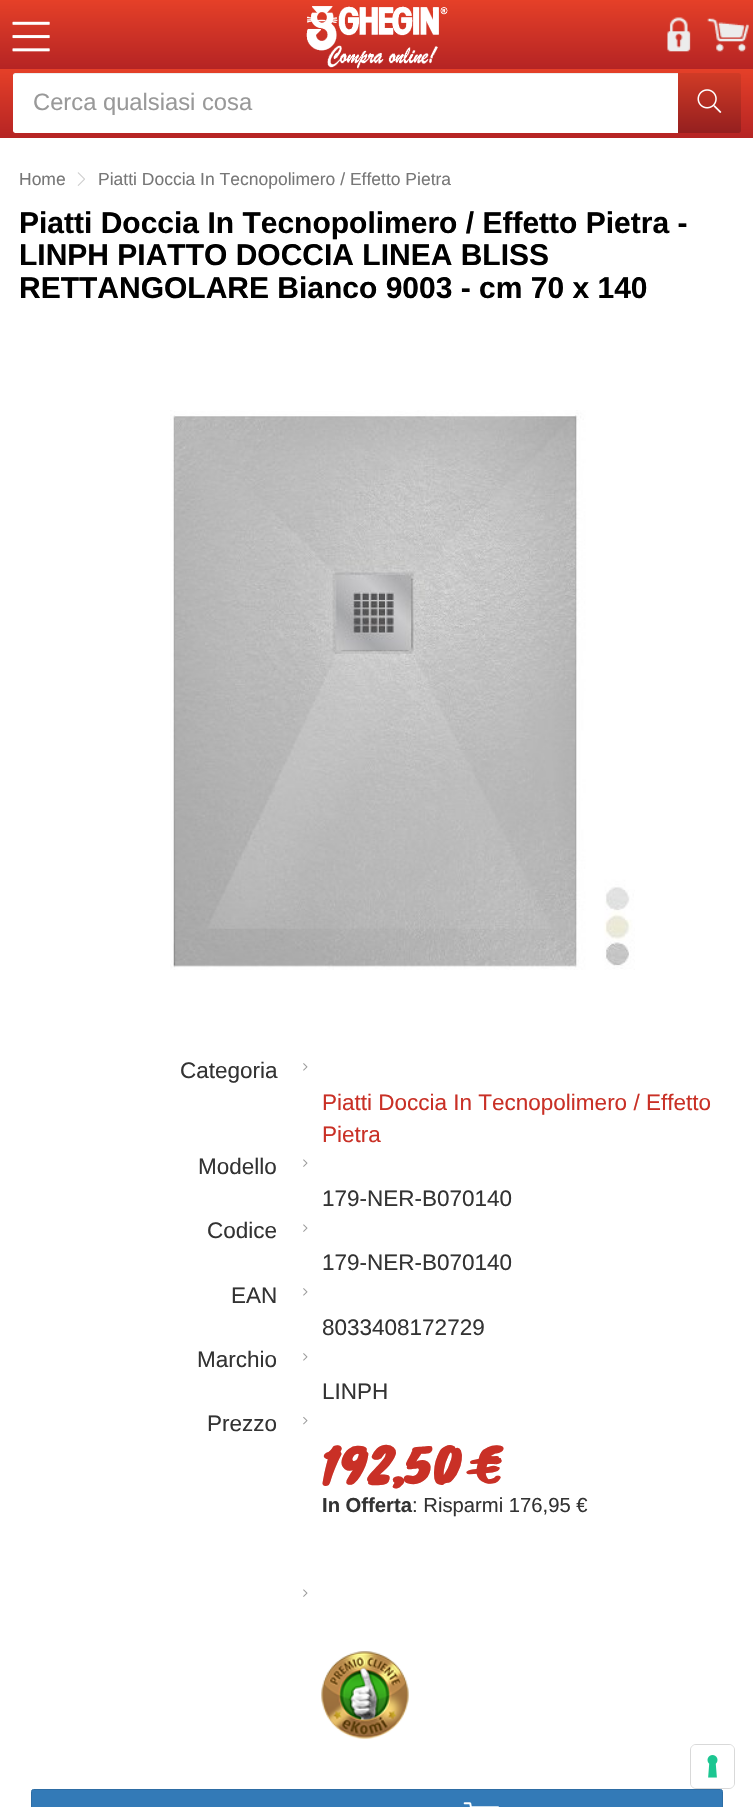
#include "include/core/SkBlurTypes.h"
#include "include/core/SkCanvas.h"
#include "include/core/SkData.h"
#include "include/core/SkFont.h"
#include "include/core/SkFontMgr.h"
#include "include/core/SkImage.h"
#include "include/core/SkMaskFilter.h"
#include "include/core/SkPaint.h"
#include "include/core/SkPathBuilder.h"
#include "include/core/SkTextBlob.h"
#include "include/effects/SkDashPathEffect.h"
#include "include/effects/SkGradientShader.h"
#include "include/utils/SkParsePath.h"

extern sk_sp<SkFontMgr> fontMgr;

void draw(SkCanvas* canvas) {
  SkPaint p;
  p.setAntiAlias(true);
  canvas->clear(SK_ColorWHITE);
  {
    const SkColor colors[] = {SkColorSetRGB(229, 64, 40), SkColorSetRGB(181, 36, 36)};
    const float stops[] = {0, 1};
    const SkPoint ends[] = {{377, 0}, {377, 69}};
    p.setShader(SkGradientShader::MakeLinear(ends, colors, stops, 2, SkTileMode::kClamp));
    p.setAlpha(255);
  }
  canvas->drawRect(SkRect::MakeLTRB(0, 0, 753, 69), p);
  canvas->drawImageRect(SkImages::DeferredFromEncodedData(SkData::MakeFromFileName("images/1.png")), SkRect::MakeLTRB(12, 21, 50, 52), SkSamplingOptions());
  canvas->drawImageRect(SkImages::DeferredFromEncodedData(SkData::MakeFromFileName("images/2.png")), SkRect::MakeLTRB(306, 6, 448, 69), SkSamplingOptions());
  canvas->drawImageRect(SkImages::DeferredFromEncodedData(SkData::MakeFromFileName("images/3.png")), SkRect::MakeLTRB(667, 17, 691, 52), SkSamplingOptions());
  canvas->drawImageRect(SkImages::DeferredFromEncodedData(SkData::MakeFromFileName("images/4.png")), SkRect::MakeLTRB(707, 18, 749, 52), SkSamplingOptions());
  {
    const SkColor colors[] = {SkColorSetRGB(229, 64, 40), SkColorSetRGB(181, 36, 36)};
    const float stops[] = {0, 1};
    const SkPoint ends[] = {{377, 69}, {377, 138}};
    p.setShader(SkGradientShader::MakeLinear(ends, colors, stops, 2, SkTileMode::kClamp));
    p.setAlpha(255);
  }
  canvas->drawRect(SkRect::MakeLTRB(0, 69, 753, 138), p);
  p.setShader(nullptr);
  p.setColor(SK_ColorWHITE);
  canvas->drawPath(SkPathBuilder().moveTo(15.5f, 73).lineTo(679, 73).lineTo(679, 133).lineTo(15.5f, 133).cubicTo(14, 133, 13, 132, 13, 130.5f).lineTo(13, 75.5f).cubicTo(13, 74, 14, 73, 15.5f, 73).close().detach(), p);
  p.setColor(SkColorSetARGB(18, 0, 0, 0));
  canvas->drawPath(SkPathBuilder().moveTo(15, 74).lineTo(679, 74).lineTo(679, 73).lineTo(16, 73).cubicTo(14, 73, 14, 74, 13, 75).close().detach(), p);
  {
    const SkColor colors[] = {SkColorSetRGB(208, 59, 38), SkColorSetRGB(148, 31, 31)};
    const float stops[] = {0, 1};
    const SkPoint ends[] = {{709, 73}, {709, 133}};
    p.setShader(SkGradientShader::MakeLinear(ends, colors, stops, 2, SkTileMode::kClamp));
    p.setAlpha(255);
  }
  canvas->drawPath(SkPathBuilder().moveTo(678, 73).lineTo(738.5f, 73).cubicTo(740, 73, 741, 74, 741, 75.5f).lineTo(741, 130.5f).cubicTo(741, 132, 740, 133, 738.5f, 133).lineTo(678, 133).close().detach(), p);
  canvas->drawImageRect(SkImages::DeferredFromEncodedData(SkData::MakeFromFileName("images/5.png")), SkRect::MakeLTRB(697, 89, 722, 113), SkSamplingOptions());
  canvas->drawImageRect(SkImages::DeferredFromEncodedData(SkData::MakeFromFileName("images/6.png")), SkRect::MakeLTRB(77, 172, 85, 186), SkSamplingOptions());
  canvas->drawImageRect(SkImages::DeferredFromEncodedData(SkData::MakeFromFileName("images/7.png")), SkRect::MakeLTRB(170, 410, 635, 970), SkSamplingOptions());
  canvas->drawImageRect(SkImages::DeferredFromEncodedData(SkData::MakeFromFileName("images/8.png")), SkRect::MakeLTRB(303, 1063, 308, 1071), SkSamplingOptions());
  canvas->drawImageRect(SkImages::DeferredFromEncodedData(SkData::MakeFromFileName("images/9.png")), SkRect::MakeLTRB(303, 1159, 308, 1167), SkSamplingOptions());
  canvas->drawImageRect(SkImages::DeferredFromEncodedData(SkData::MakeFromFileName("images/9.png")), SkRect::MakeLTRB(303, 1224, 308, 1232), SkSamplingOptions());
  canvas->drawImageRect(SkImages::DeferredFromEncodedData(SkData::MakeFromFileName("images/8.png")), SkRect::MakeLTRB(303, 1288, 308, 1296), SkSamplingOptions());
  canvas->drawImageRect(SkImages::DeferredFromEncodedData(SkData::MakeFromFileName("images/8.png")), SkRect::MakeLTRB(303, 1353, 308, 1361), SkSamplingOptions());
  canvas->drawImageRect(SkImages::DeferredFromEncodedData(SkData::MakeFromFileName("images/10.png")), SkRect::MakeLTRB(303, 1416, 308, 1425), SkSamplingOptions());
  canvas->drawImageRect(SkImages::DeferredFromEncodedData(SkData::MakeFromFileName("images/9.png")), SkRect::MakeLTRB(303, 1589, 308, 1597), SkSamplingOptions());
  canvas->drawImageRect(SkImages::DeferredFromEncodedData(SkData::MakeFromFileName("images/11.png")), SkRect::MakeLTRB(321, 1651, 409, 1739), SkSamplingOptions());
  p.setShader(nullptr);
  p.setColor(SkColorSetRGB(51, 122, 183));
  canvas->drawRoundRect(SkRect::MakeLTRB(31.5f, 1789.5f, 722.5f, 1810.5f), 2, 2, p);
  p.setStyle(SkPaint::kStroke_Style);
  p.setStrokeWidth(1);
  p.setColor(SkColorSetRGB(46, 109, 164));
  canvas->drawRoundRect(SkRect::MakeLTRB(31.5f, 1789.5f, 722.5f, 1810.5f), 2, 2, p);
  canvas->drawImageRect(SkImages::DeferredFromEncodedData(SkData::MakeFromFileName("images/12.png")), SkRect::MakeLTRB(463, 1802, 499, 1807), SkSamplingOptions());
  p.setColor(SkColorSetRGB(217, 217, 217));
  canvas->drawRoundRect(SkRect::MakeLTRB(690.5f, 1744.5f, 734.5f, 1788.5f), 5.5f, 5.5f, p);
  p.setStyle(SkPaint::kFill_Style);
  p.setColor(SK_ColorWHITE);
  canvas->drawRoundRect(SkRect::MakeLTRB(691, 1745, 734, 1788), 5, 5, p);
  canvas->drawImageRect(SkImages::DeferredFromEncodedData(SkData::MakeFromFileName("images/13.png")), SkRect::MakeLTRB(707, 1755, 718, 1778), SkSamplingOptions());
  SkFont font1(fontMgr->matchFamilyStyle("Liberation Sans", SkFontStyle::Normal()), 23.75f);
  font1.setSubpixel(true);
  p.setColor(SkColorSetRGB(153, 153, 153));
  canvas->drawString("Cerca qualsiasi cosa", 33, 110, font1, p);
  SkFont font2(fontMgr->matchFamilyStyle("Liberation Sans", SkFontStyle::Normal()), 17.5f);
  font2.setSubpixel(true);
  p.setColor(SkColorSetRGB(119, 119, 119));
  canvas->drawString("Home", 19, 185, font2, p);
  canvas->drawString("Piatti Doccia In Tecnopolimero / Effetto Pietra", 98, 185, font2, p);
  SkFont font3(fontMgr->matchFamilyStyle("Liberation Sans", SkFontStyle::Bold()), 30);
  font3.setSubpixel(true);
  p.setColor(SK_ColorBLACK);
  canvas->drawString("Piatti Doccia In Tecnopolimero / Effetto Pietra -", 19, 233, font3, p);
  canvas->drawString("LINPH PIATTO DOCCIA LINEA BLISS", 19, 265, font3, p);
  canvas->drawString("RETTANGOLARE Bianco 9003 - cm 70 x 140", 19, 298, font3, p);
  SkFont font4(fontMgr->matchFamilyStyle("Liberation Sans", SkFontStyle::Normal()), 22.5f);
  font4.setSubpixel(true);
  p.setColor(SkColorSetRGB(51, 51, 51));
  canvas->drawString("Categoria", 180, 1078, font4, p);
  p.setColor(SkColorSetRGB(201, 48, 38));
  canvas->drawString("Piatti Doccia In Tecnopolimero / Effetto", 322, 1110, font4, p);
  canvas->drawString("Pietra", 322, 1142, font4, p);
  p.setColor(SkColorSetRGB(51, 51, 51));
  canvas->drawString("Modello", 198, 1174, font4, p);
  canvas->drawString("179-NER-B070140", 322, 1206, font4, p);
  canvas->drawString("Codice", 207, 1238, font4, p);
  canvas->drawString("179-NER-B070140", 322, 1270, font4, p);
  canvas->drawString("EAN", 231, 1303, font4, p);
  canvas->drawString("8033408172729", 322, 1335, font4, p);
  canvas->drawString("Marchio", 197, 1367, font4, p);
  canvas->drawString("LINPH", 322, 1399, font4, p);
  canvas->drawString("Prezzo", 207, 1431, font4, p);
  SkFont font5(fontMgr->matchFamilyStyle("Knewave", SkFontStyle::Normal()), 45);
  font5.setSubpixel(true);
  p.setColor(SkColorSetRGB(201, 48, 38));
  canvas->drawString("192,50 €", 322, 1481, font5, p);
  SkFont font6(fontMgr->matchFamilyStyle("Liberation Sans", SkFontStyle::Bold()), 20.25f);
  font6.setSubpixel(true);
  p.setColor(SkColorSetRGB(51, 51, 51));
  canvas->drawString("In Offerta", 322, 1512, font6, p);
  SkFont font7(fontMgr->matchFamilyStyle("Liberation Sans", SkFontStyle::Normal()), 20.25f);
  font7.setSubpixel(true);
  canvas->drawString(": Risparmi 176,95 €", 412, 1512, font7, p);
}
